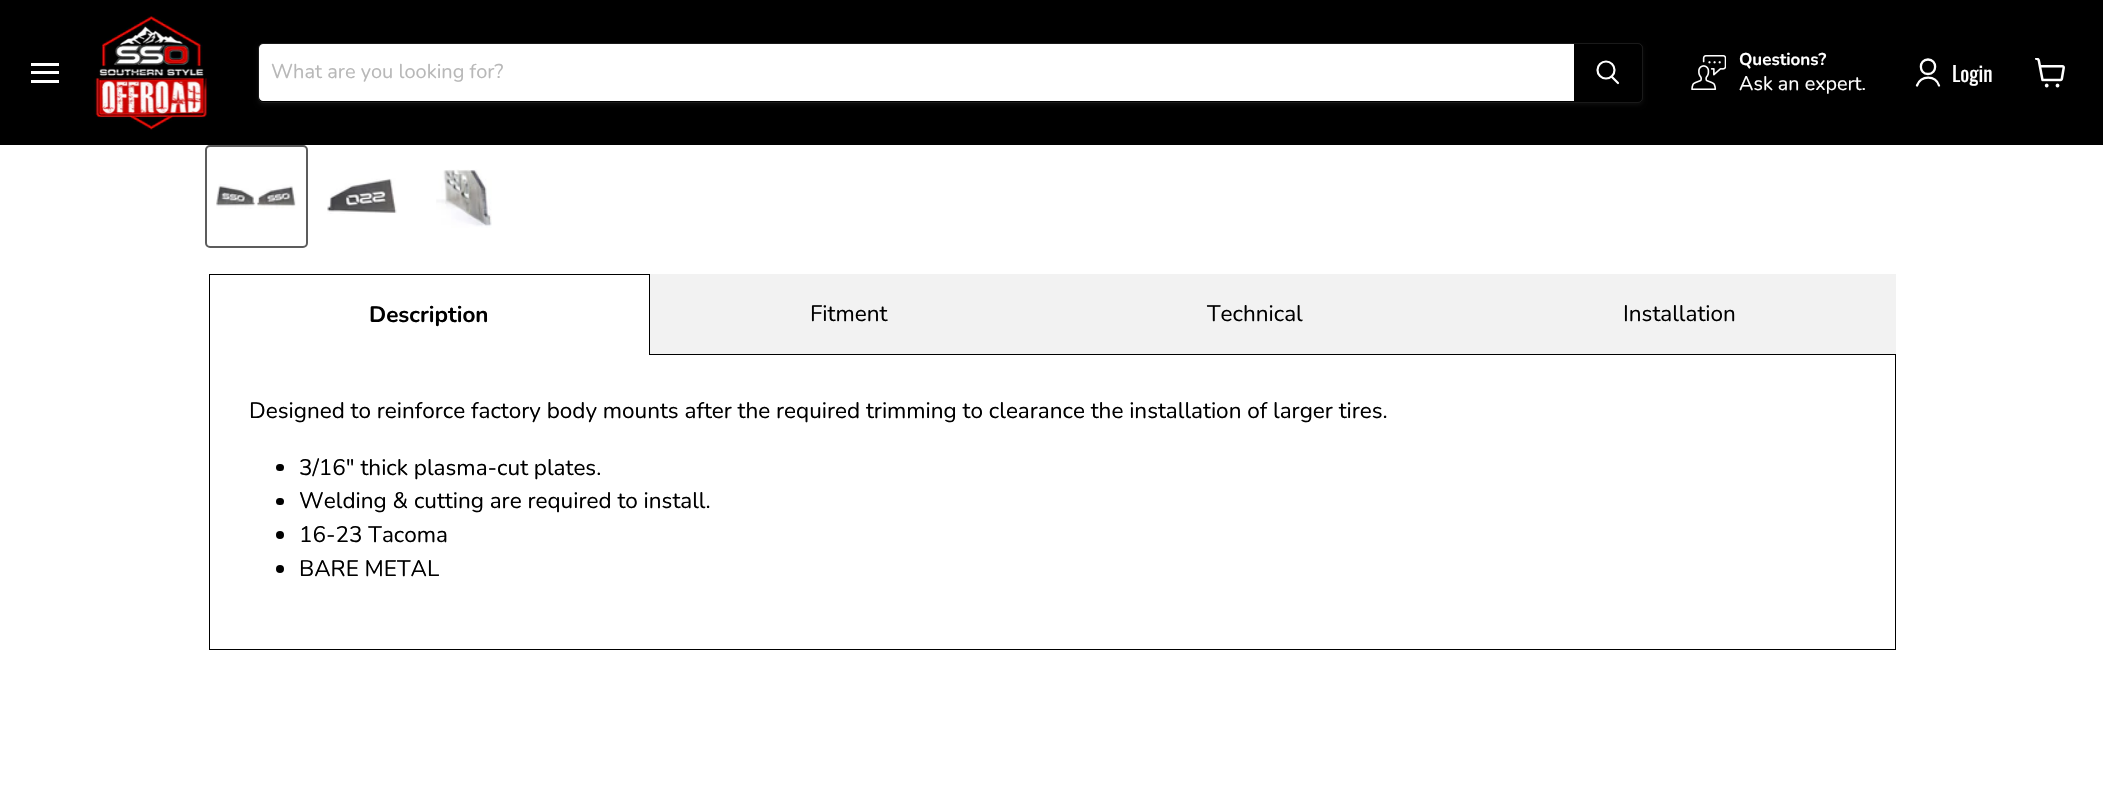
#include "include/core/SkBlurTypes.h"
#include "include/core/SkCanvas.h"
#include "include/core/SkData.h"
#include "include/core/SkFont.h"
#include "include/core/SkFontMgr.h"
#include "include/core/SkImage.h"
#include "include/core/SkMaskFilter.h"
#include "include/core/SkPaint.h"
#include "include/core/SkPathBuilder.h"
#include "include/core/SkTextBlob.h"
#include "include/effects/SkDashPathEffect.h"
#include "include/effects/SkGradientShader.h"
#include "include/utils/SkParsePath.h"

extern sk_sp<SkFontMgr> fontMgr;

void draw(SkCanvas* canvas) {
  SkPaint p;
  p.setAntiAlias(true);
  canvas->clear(SK_ColorWHITE);
  p.setColor(SK_ColorBLACK);
  canvas->drawRect(SkRect::MakeLTRB(0, 0, 2103, 145), p);
  p.setColor(SK_ColorWHITE);
  canvas->drawRect(SkRect::MakeLTRB(31, 63, 59, 66), p);
  canvas->drawRect(SkRect::MakeLTRB(31, 71, 59, 74), p);
  canvas->drawRect(SkRect::MakeLTRB(31, 80, 59, 83), p);
  canvas->drawImageRect(SkImages::DeferredFromEncodedData(SkData::MakeFromFileName("images/1.png")), SkRect::MakeLTRB(94, 16, 209, 130), SkSamplingOptions());
  canvas->save();
  canvas->clipPath(SkPathBuilder(SkPathFillType::kEvenOdd).moveTo(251, 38).lineTo(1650, 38).lineTo(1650, 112).lineTo(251, 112).close().moveTo(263, 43).lineTo(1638, 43).cubicTo(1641, 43, 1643, 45, 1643, 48).lineTo(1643, 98).cubicTo(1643, 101, 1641, 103, 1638, 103).lineTo(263, 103).cubicTo(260, 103, 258, 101, 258, 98).lineTo(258, 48).cubicTo(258, 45, 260, 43, 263, 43).close().detach(), true);
  p.setColor(SkColorSetARGB(28, 128, 128, 128));
  p.setMaskFilter(SkMaskFilter::MakeBlur(kNormal_SkBlurStyle, 2));
  canvas->drawRoundRect(SkRect::MakeLTRB(258, 45, 1643, 105), 5, 5, p);
  p.setMaskFilter(nullptr);
  canvas->restore();
  p.setStyle(SkPaint::kStroke_Style);
  p.setStrokeWidth(1);
  p.setColor(SkColorSetARGB(51, 128, 128, 128));
  canvas->drawRoundRect(SkRect::MakeLTRB(258.5f, 43.5f, 1642.5f, 102.5f), 4.5f, 4.5f, p);
  p.setStyle(SkPaint::kFill_Style);
  p.setColor(SK_ColorWHITE);
  canvas->drawPath(SkPathBuilder().moveTo(263, 44).lineTo(1574, 44).lineTo(1574, 101).lineTo(263, 101).cubicTo(261, 101, 259, 99, 259, 97).lineTo(259, 48).cubicTo(259, 46, 261, 44, 263, 44).close().detach(), p);
  p.setStyle(SkPaint::kStroke_Style);
  p.setStrokeWidth(2.2f);
  p.setStrokeCap(SkPaint::kRound_Cap);
  canvas->drawPath(SkPathBuilder().moveTo(1618, 83).lineTo(1612, 77).detach(), p);
  p.setStrokeCap(SkPaint::kButt_Cap);
  canvas->drawCircle(1606, 70, 8.5f, p);
  canvas->drawImageRect(SkImages::DeferredFromEncodedData(SkData::MakeFromFileName("images/2.png")), SkRect::MakeLTRB(1691, 55, 1726, 90), SkSamplingOptions());
  p.setStrokeWidth(2.3f);
  p.setStrokeCap(SkPaint::kRound_Cap);
  p.setStrokeJoin(SkPaint::kRound_Join);
  canvas->drawPath(SkPathBuilder().moveTo(1928, 74).cubicTo(1937.5f, 74, 1937.5f, 59.5f, 1928, 59.5f).cubicTo(1918.5f, 59.5f, 1918.5f, 74, 1928, 74).close().moveTo(1939, 85.5f).cubicTo(1935.5f, 75, 1921, 75, 1917, 85.5f).detach(), p);
  canvas->drawImageRect(SkImages::DeferredFromEncodedData(SkData::MakeFromFileName("images/3.png")), SkRect::MakeLTRB(2035, 58, 2065, 88), SkSamplingOptions());
  p.setStrokeWidth(2);
  p.setStrokeCap(SkPaint::kButt_Cap);
  p.setStrokeJoin(SkPaint::kMiter_Join);
  p.setColor(SkColorSetRGB(92, 92, 92));
  canvas->drawRoundRect(SkRect::MakeLTRB(206, 146, 307, 247), 4, 4, p);
  canvas->drawImageRect(SkImages::DeferredFromEncodedData(SkData::MakeFromFileName("images/4.png")), SkRect::MakeLTRB(216, 184, 296, 209), SkSamplingOptions());
  canvas->drawImageRect(SkImages::DeferredFromEncodedData(SkData::MakeFromFileName("images/5.png")), SkRect::MakeLTRB(327, 178, 397, 214), SkSamplingOptions());
  canvas->drawImageRect(SkImages::DeferredFromEncodedData(SkData::MakeFromFileName("images/6.png")), SkRect::MakeLTRB(436, 169, 492, 228), SkSamplingOptions());
  p.setStyle(SkPaint::kFill_Style);
  p.setColor(SK_ColorBLACK);
  canvas->drawRect(SkRect::MakeLTRB(209, 274, 650, 275), p);
  canvas->drawRect(SkRect::MakeLTRB(649, 274, 650, 355), p);
  canvas->drawRect(SkRect::MakeLTRB(209, 274, 210, 355), p);
  p.setColor(SkColorSetRGB(242, 242, 242));
  canvas->drawRect(SkRect::MakeLTRB(650, 274, 1896, 354), p);
  p.setColor(SK_ColorBLACK);
  canvas->drawRect(SkRect::MakeLTRB(650, 354, 1896, 355), p);
  canvas->drawRect(SkRect::MakeLTRB(1895, 355, 1896, 650), p);
  canvas->drawRect(SkRect::MakeLTRB(209, 649, 1896, 650), p);
  canvas->drawRect(SkRect::MakeLTRB(209, 355, 210, 650), p);
  canvas->drawRoundRect(SkRect::MakeLTRB(276, 464, 284, 471), 3.5f, 3.5f, p);
  canvas->drawRoundRect(SkRect::MakeLTRB(276, 498, 284, 505), 3.5f, 3.5f, p);
  canvas->drawCircle(280, 535, 4, p);
  canvas->drawCircle(280, 569, 4, p);
  SkFont font1(fontMgr->matchFamilyStyle("Nunito", SkFontStyle::Normal()), 20);
  font1.setSubpixel(true);
  p.setColor(SkColorSetRGB(184, 184, 184));
  canvas->drawString("What are you looking for?", 271, 78, font1, p);
  SkFont font2(fontMgr->matchFamilyStyle("Nunito", SkFontStyle::Bold()), 17);
  font2.setSubpixel(true);
  p.setColor(SK_ColorWHITE);
  canvas->drawString("Questions?", 1739, 65, font2, p);
  SkFont font3(fontMgr->matchFamilyStyle("Nunito", SkFontStyle::Normal()), 19.75f);
  font3.setSubpixel(true);
  canvas->drawString("Ask an expert.", 1739, 90, font3, p);
  SkFont font4(fontMgr->matchFamilyStyle("Oswald", SkFontStyle::Normal()), 21);
  font4.setSubpixel(true);
  canvas->drawString("Login", 1952, 82, font4, p);
  SkFont font5(fontMgr->matchFamilyStyle("Nunito", SkFontStyle::Bold()), 22.5f);
  font5.setSubpixel(true);
  p.setColor(SK_ColorBLACK);
  canvas->drawString("Description", 369, 322, font5, p);
  SkFont font6(fontMgr->matchFamilyStyle("Nunito", SkFontStyle::Normal()), 22.5f);
  font6.setSubpixel(true);
  canvas->drawString("Fitment", 810, 321, font6, p);
  canvas->drawString("Technical", 1207, 321, font6, p);
  canvas->drawString("Installation", 1623, 321, font6, p);
  canvas->drawString("Designed to reinforce factory body mounts after the required trimming to clearance the installation of larger tires.", 249, 418, font6, p);
  canvas->drawString("3/16″ thick plasma-cut plates.", 299, 475, font6, p);
  canvas->drawString("Welding & cutting are required to install.", 299, 508, font6, p);
  canvas->drawString("16-23 Tacoma", 299, 542, font6, p);
  canvas->drawString("BARE METAL", 299, 576, font6, p);
}
